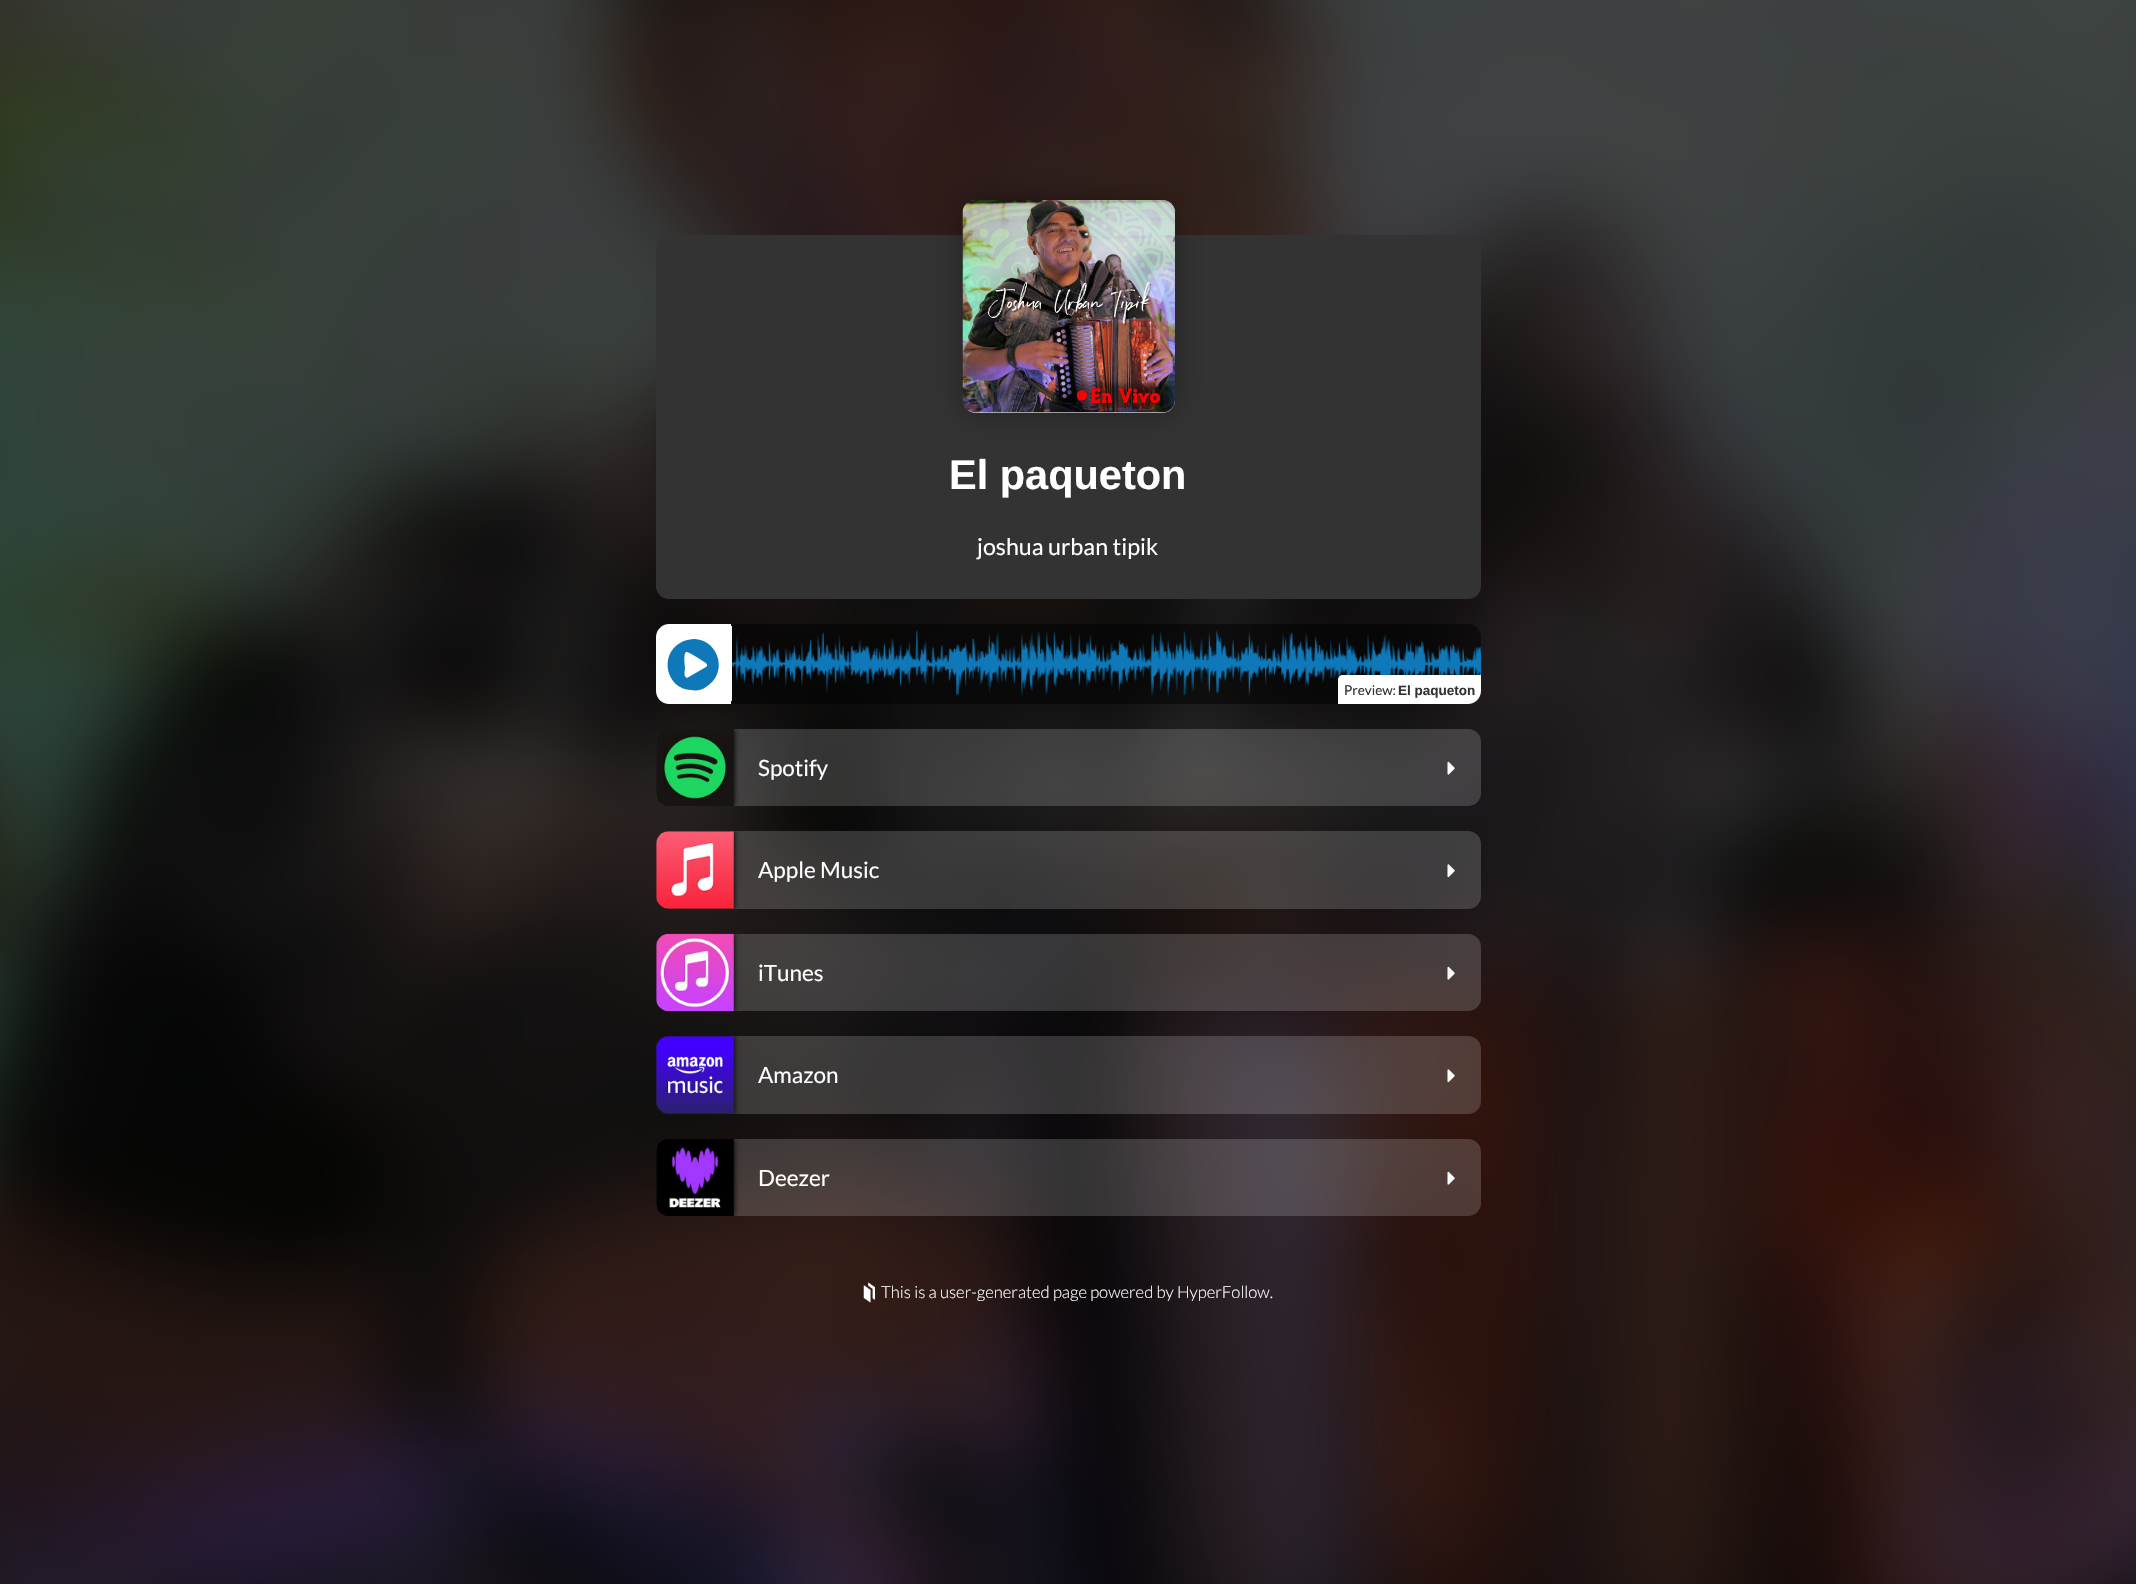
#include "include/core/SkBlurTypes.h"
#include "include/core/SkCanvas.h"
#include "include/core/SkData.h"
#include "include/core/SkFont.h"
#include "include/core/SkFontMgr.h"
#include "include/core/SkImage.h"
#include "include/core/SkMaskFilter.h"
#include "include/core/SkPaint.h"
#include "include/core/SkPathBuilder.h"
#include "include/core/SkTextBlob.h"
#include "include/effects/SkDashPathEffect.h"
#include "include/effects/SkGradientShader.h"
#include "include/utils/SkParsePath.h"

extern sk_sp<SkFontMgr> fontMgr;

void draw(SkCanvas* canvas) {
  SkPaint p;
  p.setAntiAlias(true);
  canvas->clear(SK_ColorBLACK);
  canvas->drawImageRect(SkImages::DeferredFromEncodedData(SkData::MakeFromFileName("images/1.png")), SkRect::MakeLTRB(0, 0, 2136, 1584), SkSamplingOptions());
  p.setColor(SkColorSetRGB(51, 51, 51));
  canvas->drawRoundRect(SkRect::MakeLTRB(656, 235, 1481, 599), 13, 13, p);
  p.setColor(SkColorSetARGB(89, 0, 0, 0));
  p.setMaskFilter(SkMaskFilter::MakeBlur(kNormal_SkBlurStyle, 15.5f));
  canvas->drawRoundRect(SkRect::MakeLTRB(963, 200, 1175, 413), 13, 13, p);
  p.setMaskFilter(nullptr);
  p.setColor(SkColorSetRGB(204, 204, 204));
  canvas->drawRoundRect(SkRect::MakeLTRB(963, 200, 1175, 413), 13, 13, p);
  canvas->drawImageRect(SkImages::DeferredFromEncodedData(SkData::MakeFromFileName("images/2.png")), SkRect::MakeLTRB(962, 200, 1175, 413), SkSamplingOptions());
  p.setColor(SK_ColorWHITE);
  canvas->drawPath(SkPathBuilder().moveTo(669, 624).lineTo(731, 624).lineTo(731, 704).lineTo(669, 704).cubicTo(662, 704, 656, 698, 656, 691).lineTo(656, 637).cubicTo(656, 630, 662, 624, 669, 624).close().detach(), p);
  p.setColor(SkColorSetRGB(15, 120, 184));
  canvas->drawPath(SkPathBuilder().moveTo(680, 643).cubicTo(685, 640, 690, 639, 695, 639).cubicTo(720, 641, 728, 674, 706, 687).cubicTo(702, 690, 697, 691, 691, 690).cubicTo(666, 689, 659, 655, 680, 643).close().moveTo(706, 667).cubicTo(711, 664, 700, 660, 700, 659).cubicTo(698, 658, 688, 651, 686, 652).cubicTo(683, 654, 685, 666, 685, 668).cubicTo(685, 670, 683, 677, 687, 678).close().detach(), p);
  p.setColor(SkColorSetARGB(128, 0, 0, 0));
  canvas->drawPath(SkPathBuilder().moveTo(731, 624).lineTo(1468, 624).cubicTo(1475, 624, 1481, 630, 1481, 637).lineTo(1481, 691).cubicTo(1481, 698, 1475, 704, 1468, 704).lineTo(731, 704).close().detach(), p);
  p.setColor(SK_ColorWHITE);
  canvas->drawRect(SkRect::MakeLTRB(731, 626, 732, 701), p);
  canvas->drawImageRect(SkImages::DeferredFromEncodedData(SkData::MakeFromFileName("images/3.png")), SkRect::MakeLTRB(732, 630, 1482, 697), SkSamplingOptions());
  canvas->drawPath(SkPathBuilder().moveTo(1343, 675).lineTo(1481, 675).lineTo(1481, 691).cubicTo(1481, 698, 1475, 704, 1468, 704).lineTo(1338, 704).lineTo(1338, 680).cubicTo(1338, 677, 1340, 675, 1343, 675).close().detach(), p);
  p.setColor(SkColorSetARGB(43, 255, 255, 255));
  canvas->drawRoundRect(SkRect::MakeLTRB(656, 729, 1481, 806), 13, 13, p);
  canvas->save();
  canvas->clipPath(SkPathBuilder().moveTo(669, 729).lineTo(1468, 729).cubicTo(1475, 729, 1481, 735, 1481, 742).lineTo(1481, 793).cubicTo(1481, 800, 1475, 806, 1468, 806).lineTo(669, 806).cubicTo(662, 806, 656, 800, 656, 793).lineTo(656, 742).cubicTo(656, 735, 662, 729, 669, 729).close().detach(), true);
  p.setColor(SK_ColorBLACK);
  p.setMaskFilter(SkMaskFilter::MakeBlur(kNormal_SkBlurStyle, 3));
  canvas->drawRect(SkRect::MakeLTRB(656, 729, 734, 806), p);
  p.setMaskFilter(nullptr);
  canvas->restore();
  canvas->drawImageRect(SkImages::DeferredFromEncodedData(SkData::MakeFromFileName("images/4.png")), SkRect::MakeLTRB(656, 729, 734, 806), SkSamplingOptions());
  canvas->drawImageRect(SkImages::DeferredFromEncodedData(SkData::MakeFromFileName("images/5.png")), SkRect::MakeLTRB(1447, 761, 1455, 775), SkSamplingOptions());
  p.setColor(SkColorSetARGB(43, 255, 255, 255));
  canvas->drawRoundRect(SkRect::MakeLTRB(656, 831, 1481, 909), 13, 13, p);
  canvas->save();
  canvas->clipPath(SkPathBuilder().moveTo(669, 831).lineTo(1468, 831).cubicTo(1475, 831, 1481, 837, 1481, 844).lineTo(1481, 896).cubicTo(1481, 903, 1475, 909, 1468, 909).lineTo(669, 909).cubicTo(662, 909, 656, 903, 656, 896).lineTo(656, 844).cubicTo(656, 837, 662, 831, 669, 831).close().detach(), true);
  p.setColor(SK_ColorBLACK);
  p.setMaskFilter(SkMaskFilter::MakeBlur(kNormal_SkBlurStyle, 3));
  canvas->drawRect(SkRect::MakeLTRB(656, 831, 734, 909), p);
  p.setMaskFilter(nullptr);
  canvas->restore();
  canvas->drawImageRect(SkImages::DeferredFromEncodedData(SkData::MakeFromFileName("images/6.png")), SkRect::MakeLTRB(656, 831, 734, 909), SkSamplingOptions());
  canvas->drawImageRect(SkImages::DeferredFromEncodedData(SkData::MakeFromFileName("images/7.png")), SkRect::MakeLTRB(1447, 864, 1455, 878), SkSamplingOptions());
  p.setColor(SkColorSetARGB(43, 255, 255, 255));
  canvas->drawRoundRect(SkRect::MakeLTRB(656, 934, 1481, 1011), 13, 13, p);
  canvas->save();
  canvas->clipPath(SkPathBuilder().moveTo(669, 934).lineTo(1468, 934).cubicTo(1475, 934, 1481, 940, 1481, 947).lineTo(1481, 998).cubicTo(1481, 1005, 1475, 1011, 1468, 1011).lineTo(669, 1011).cubicTo(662, 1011, 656, 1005, 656, 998).lineTo(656, 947).cubicTo(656, 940, 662, 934, 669, 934).close().detach(), true);
  p.setColor(SK_ColorBLACK);
  p.setMaskFilter(SkMaskFilter::MakeBlur(kNormal_SkBlurStyle, 3));
  canvas->drawRect(SkRect::MakeLTRB(656, 934, 734, 1011), p);
  p.setMaskFilter(nullptr);
  canvas->restore();
  canvas->drawImageRect(SkImages::DeferredFromEncodedData(SkData::MakeFromFileName("images/8.png")), SkRect::MakeLTRB(656, 933, 734, 1012), SkSamplingOptions());
  canvas->drawImageRect(SkImages::DeferredFromEncodedData(SkData::MakeFromFileName("images/9.png")), SkRect::MakeLTRB(1447, 966, 1455, 980), SkSamplingOptions());
  p.setColor(SkColorSetARGB(43, 255, 255, 255));
  canvas->drawRoundRect(SkRect::MakeLTRB(656, 1036, 1481, 1114), 13, 13, p);
  canvas->save();
  canvas->clipPath(SkPathBuilder().moveTo(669, 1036).lineTo(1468, 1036).cubicTo(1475, 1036, 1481, 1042, 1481, 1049).lineTo(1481, 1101).cubicTo(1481, 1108, 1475, 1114, 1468, 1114).lineTo(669, 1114).cubicTo(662, 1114, 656, 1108, 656, 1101).lineTo(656, 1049).cubicTo(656, 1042, 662, 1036, 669, 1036).close().detach(), true);
  p.setColor(SK_ColorBLACK);
  p.setMaskFilter(SkMaskFilter::MakeBlur(kNormal_SkBlurStyle, 3));
  canvas->drawRect(SkRect::MakeLTRB(656, 1036, 734, 1114), p);
  p.setMaskFilter(nullptr);
  canvas->restore();
  canvas->drawImageRect(SkImages::DeferredFromEncodedData(SkData::MakeFromFileName("images/10.png")), SkRect::MakeLTRB(656, 1036, 734, 1114), SkSamplingOptions());
  canvas->drawImageRect(SkImages::DeferredFromEncodedData(SkData::MakeFromFileName("images/11.png")), SkRect::MakeLTRB(1447, 1069, 1455, 1083), SkSamplingOptions());
  p.setColor(SkColorSetARGB(43, 255, 255, 255));
  canvas->drawRoundRect(SkRect::MakeLTRB(656, 1139, 1481, 1216), 13, 13, p);
  canvas->save();
  canvas->clipPath(SkPathBuilder().moveTo(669, 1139).lineTo(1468, 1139).cubicTo(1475, 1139, 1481, 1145, 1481, 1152).lineTo(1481, 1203).cubicTo(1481, 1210, 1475, 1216, 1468, 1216).lineTo(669, 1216).cubicTo(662, 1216, 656, 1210, 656, 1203).lineTo(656, 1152).cubicTo(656, 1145, 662, 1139, 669, 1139).close().detach(), true);
  p.setColor(SK_ColorBLACK);
  p.setMaskFilter(SkMaskFilter::MakeBlur(kNormal_SkBlurStyle, 3));
  canvas->drawRect(SkRect::MakeLTRB(656, 1139, 734, 1216), p);
  p.setMaskFilter(nullptr);
  canvas->restore();
  canvas->drawImageRect(SkImages::DeferredFromEncodedData(SkData::MakeFromFileName("images/12.png")), SkRect::MakeLTRB(656, 1139, 734, 1216), SkSamplingOptions());
  canvas->drawImageRect(SkImages::DeferredFromEncodedData(SkData::MakeFromFileName("images/13.png")), SkRect::MakeLTRB(1447, 1171, 1455, 1185), SkSamplingOptions());
  canvas->drawImageRect(SkImages::DeferredFromEncodedData(SkData::MakeFromFileName("images/14.png")), SkRect::MakeLTRB(863, 1282, 875, 1303), SkSamplingOptions());
  SkFont font1(fontMgr->matchFamilyStyle("Liberation Sans", SkFontStyle::Bold()), 41.5f);
  font1.setSubpixel(true);
  p.setColor(SK_ColorWHITE);
  canvas->drawString("El paqueton", 949, 489, font1, p);
  SkFont font2(fontMgr->matchFamilyStyle("Lato", SkFontStyle::Normal()), 23.25f);
  font2.setSubpixel(true);
  canvas->drawString("joshua urban tipik", 977, 555, font2, p);
  SkFont font3(fontMgr->matchFamilyStyle("Lato", SkFontStyle::Normal()), 13.5f);
  font3.setSubpixel(true);
  p.setColor(SkColorSetRGB(51, 51, 51));
  canvas->drawString("Preview:", 1344, 695, font3, p);
  SkFont font4(fontMgr->matchFamilyStyle("Liberation Sans", SkFontStyle::Bold()), 13.5f);
  font4.setSubpixel(true);
  canvas->drawString("El paqueton", 1398, 695, font4, p);
  SkFont font5(fontMgr->matchFamilyStyle("Lato", SkFontStyle::Normal()), 22.5f);
  font5.setSubpixel(true);
  p.setColor(SK_ColorWHITE);
  canvas->drawString("Spotify", 758, 776, font5, p);
  canvas->drawString("Apple Music", 758, 878, font5, p);
  canvas->drawString("iTunes", 758, 981, font5, p);
  canvas->drawString("Amazon", 758, 1083, font5, p);
  canvas->drawString("Deezer", 758, 1186, font5, p);
  SkFont font6(fontMgr->matchFamilyStyle("Lato", SkFontStyle(300, SkFontStyle::kNormal_Width, SkFontStyle::kUpright_Slant)), 16.7f);
  font6.setSubpixel(true);
  canvas->drawString("This is a user-generated page powered by HyperFollow.", 881, 1298, font6, p);
}
